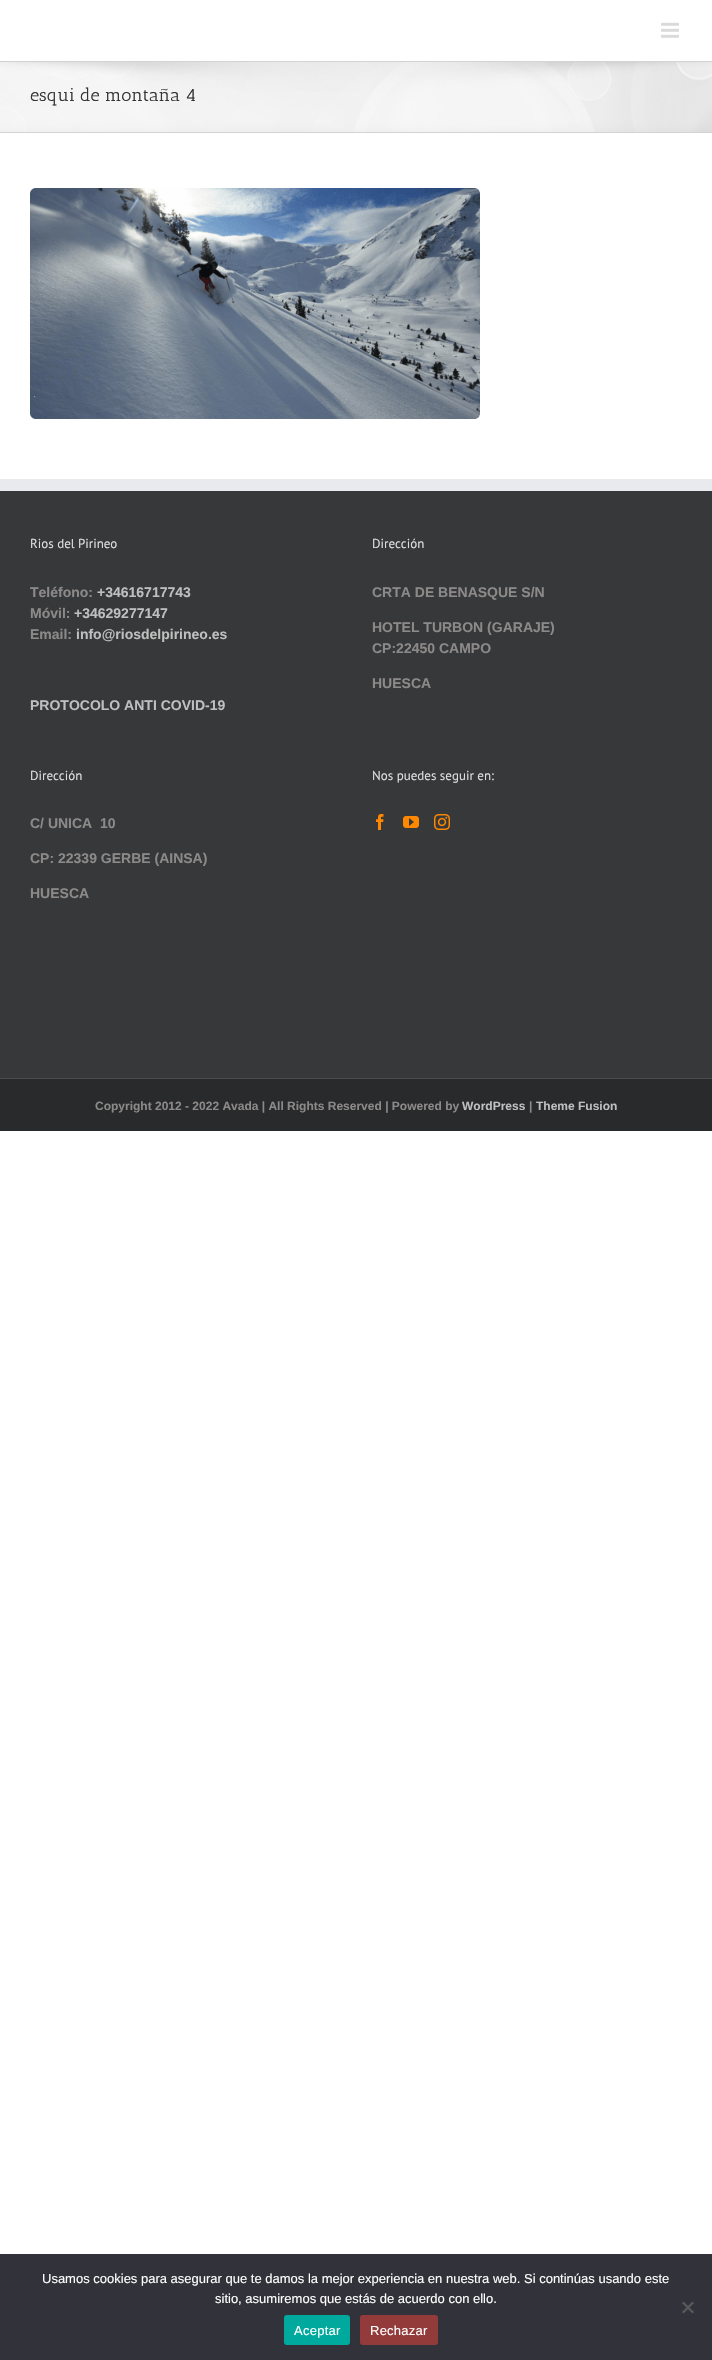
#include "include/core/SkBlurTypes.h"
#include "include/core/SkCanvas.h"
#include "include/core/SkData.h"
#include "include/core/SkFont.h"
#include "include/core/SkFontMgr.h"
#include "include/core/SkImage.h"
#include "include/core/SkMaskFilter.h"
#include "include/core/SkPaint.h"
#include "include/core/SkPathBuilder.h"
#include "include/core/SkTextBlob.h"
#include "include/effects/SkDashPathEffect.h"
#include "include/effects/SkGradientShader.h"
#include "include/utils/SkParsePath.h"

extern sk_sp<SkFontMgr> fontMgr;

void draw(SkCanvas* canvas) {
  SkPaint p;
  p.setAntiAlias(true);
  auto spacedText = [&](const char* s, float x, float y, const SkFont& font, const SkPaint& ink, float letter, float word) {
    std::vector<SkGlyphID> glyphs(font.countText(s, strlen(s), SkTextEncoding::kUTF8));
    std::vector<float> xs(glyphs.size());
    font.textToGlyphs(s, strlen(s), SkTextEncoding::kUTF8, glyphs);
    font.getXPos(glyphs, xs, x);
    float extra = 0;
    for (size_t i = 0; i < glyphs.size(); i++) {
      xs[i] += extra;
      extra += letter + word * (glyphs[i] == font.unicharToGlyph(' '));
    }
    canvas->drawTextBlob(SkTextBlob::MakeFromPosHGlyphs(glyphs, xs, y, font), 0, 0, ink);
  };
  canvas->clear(SK_ColorWHITE);
  canvas->drawImageRect(SkImages::DeferredFromEncodedData(SkData::MakeFromFileName("images/1.png")), SkRect::MakeLTRB(661, 22, 679, 38), SkSamplingOptions());
  p.setColor(SkColorSetRGB(246, 246, 246));
  canvas->drawRect(SkRect::MakeLTRB(0, 62, 712, 132), p);
  canvas->drawImageRect(SkImages::DeferredFromEncodedData(SkData::MakeFromFileName("images/2.png")), SkRect::MakeLTRB(0, 62, 712, 132), SkSamplingOptions());
  p.setColor(SkColorSetRGB(210, 211, 212));
  canvas->drawRect(SkRect::MakeLTRB(0, 61, 712, 62), p);
  canvas->drawRect(SkRect::MakeLTRB(0, 132, 712, 133), p);
  canvas->drawImageRect(SkImages::DeferredFromEncodedData(SkData::MakeFromFileName("images/3.png")), SkRect::MakeLTRB(30, 188, 480, 419), SkSamplingOptions());
  p.setColor(SkColorSetRGB(54, 56, 57));
  canvas->drawRect(SkRect::MakeLTRB(0, 491, 712, 1078), p);
  p.setColor(SkColorSetRGB(233, 234, 238));
  canvas->drawRect(SkRect::MakeLTRB(0, 479, 712, 491), p);
  canvas->drawImageRect(SkImages::DeferredFromEncodedData(SkData::MakeFromFileName("images/4.png")), SkRect::MakeLTRB(376, 814, 384, 830), SkSamplingOptions());
  canvas->drawImageRect(SkImages::DeferredFromEncodedData(SkData::MakeFromFileName("images/5.png")), SkRect::MakeLTRB(403, 816, 419, 828), SkSamplingOptions());
  canvas->drawImageRect(SkImages::DeferredFromEncodedData(SkData::MakeFromFileName("images/6.png")), SkRect::MakeLTRB(434, 814, 450, 830), SkSamplingOptions());
  p.setColor(SkColorSetRGB(40, 42, 43));
  canvas->drawRect(SkRect::MakeLTRB(0, 1079, 712, 1131), p);
  p.setColor(SkColorSetRGB(75, 76, 77));
  canvas->drawRect(SkRect::MakeLTRB(0, 1078, 712, 1079), p);
  p.setColor(SkColorSetRGB(50, 50, 58));
  canvas->drawRect(SkRect::MakeLTRB(0, 2254, 712, 2360), p);
  p.setColor(SkColorSetRGB(89, 89, 93));
  canvas->drawPath(SkPathBuilder().moveTo(692.5f, 2301.5f).lineTo(694, 2303).lineTo(683.5f, 2313.5f).lineTo(682, 2312).close().detach(), p);
  canvas->drawPath(SkPathBuilder().moveTo(682, 2303).lineTo(683.5f, 2301.5f).lineTo(694, 2312).lineTo(692.5f, 2313.5f).close().detach(), p);
  p.setColor(SkColorSetRGB(0, 169, 157));
  canvas->drawRoundRect(SkRect::MakeLTRB(284, 2315, 350, 2345), 3, 3, p);
  p.setColor(SkColorSetRGB(147, 59, 59));
  canvas->drawRoundRect(SkRect::MakeLTRB(360, 2315, 438, 2345), 3, 3, p);
  SkFont font1(fontMgr->matchFamilyStyle("Antic Slab", SkFontStyle::Normal()), 18);
  font1.setSubpixel(true);
  p.setColor(SkColorSetRGB(51, 51, 51));
  canvas->drawString("esqui de montaña 4", 30, 101, font1, p);
  SkFont font2(fontMgr->matchFamilyStyle("PT Sans", SkFontStyle::Normal()), 13);
  font2.setSubpixel(true);
  p.setColor(SkColorSetRGB(221, 221, 221));
  canvas->drawString("Rios del Pirineo", 30, 548, font2, p);
  SkFont font3(fontMgr->matchFamilyStyle("Liberation Sans", SkFontStyle::Bold()), 14);
  font3.setSubpixel(true);
  p.setColor(SkColorSetRGB(140, 137, 137));
  canvas->drawString("Teléfono:", 30, 597, font3, p);
  p.setColor(SkColorSetRGB(191, 191, 191));
  canvas->drawString("+34616717743", 97, 597, font3, p);
  p.setColor(SkColorSetRGB(140, 137, 137));
  canvas->drawString("Móvil:", 30, 618, font3, p);
  p.setColor(SkColorSetRGB(191, 191, 191));
  canvas->drawString("+34629277147", 74, 618, font3, p);
  p.setColor(SkColorSetRGB(140, 137, 137));
  canvas->drawString("Email:", 30, 639, font3, p);
  p.setColor(SkColorSetRGB(191, 191, 191));
  canvas->drawString("info@riosdelpirineo.es", 76, 639, font3, p);
  canvas->drawString("PROTOCOLO ANTI COVID-19", 30, 710, font3, p);
  p.setColor(SkColorSetRGB(221, 221, 221));
  canvas->drawString("Dirección", 372, 548, font2, p);
  p.setColor(SkColorSetRGB(140, 137, 137));
  canvas->drawString("CRTA DE BENASQUE S/N", 372, 597, font3, p);
  canvas->drawString("HOTEL TURBON (GARAJE)", 372, 632, font3, p);
  canvas->drawString("CP:22450 CAMPO", 372, 653, font3, p);
  canvas->drawString("HUESCA", 372, 688, font3, p);
  p.setColor(SkColorSetRGB(221, 221, 221));
  canvas->drawString("Dirección", 30, 780, font2, p);
  p.setColor(SkColorSetRGB(140, 137, 137));
  canvas->drawString("C/ UNICA  10", 30, 828, font3, p);
  canvas->drawString("CP: 22339 GERBE (AINSA)", 30, 863, font3, p);
  canvas->drawString("HUESCA", 30, 898, font3, p);
  p.setColor(SkColorSetRGB(221, 221, 221));
  canvas->drawString("Nos puedes seguir en:", 372, 780, font2, p);
  SkFont font4(fontMgr->matchFamilyStyle("Liberation Sans", SkFontStyle::Bold()), 12);
  font4.setSubpixel(true);
  p.setColor(SkColorSetRGB(140, 137, 137));
  canvas->drawString("Copyright 2012 - 2022 Avada | All Rights Reserved | Powered by", 95, 1110, font4, p);
  p.setColor(SkColorSetRGB(191, 191, 191));
  canvas->drawString("WordPress", 462, 1110, font4, p);
  p.setColor(SkColorSetRGB(140, 137, 137));
  canvas->drawString("|", 529, 1110, font4, p);
  p.setColor(SkColorSetRGB(191, 191, 191));
  canvas->drawString("Theme Fusion", 536, 1110, font4, p);
  SkFont font5(fontMgr->matchFamilyStyle("Liberation Sans", SkFontStyle::Normal()), 13);
  font5.setSubpixel(true);
  p.setColor(SK_ColorWHITE);
  canvas->drawString("Usamos cookies para asegurar que te damos la mejor experiencia en nuestra web. Si continúas usando este", 42, 2283, font5, p);
  canvas->drawString("sitio, asumiremos que estás de acuerdo con ello.", 215, 2303, font5, p);
  spacedText("Aceptar", 294, 2335, font5, p, 0.25f, 0);
  spacedText("Rechazar", 370, 2335, font5, p, 0.25f, 0);
}
